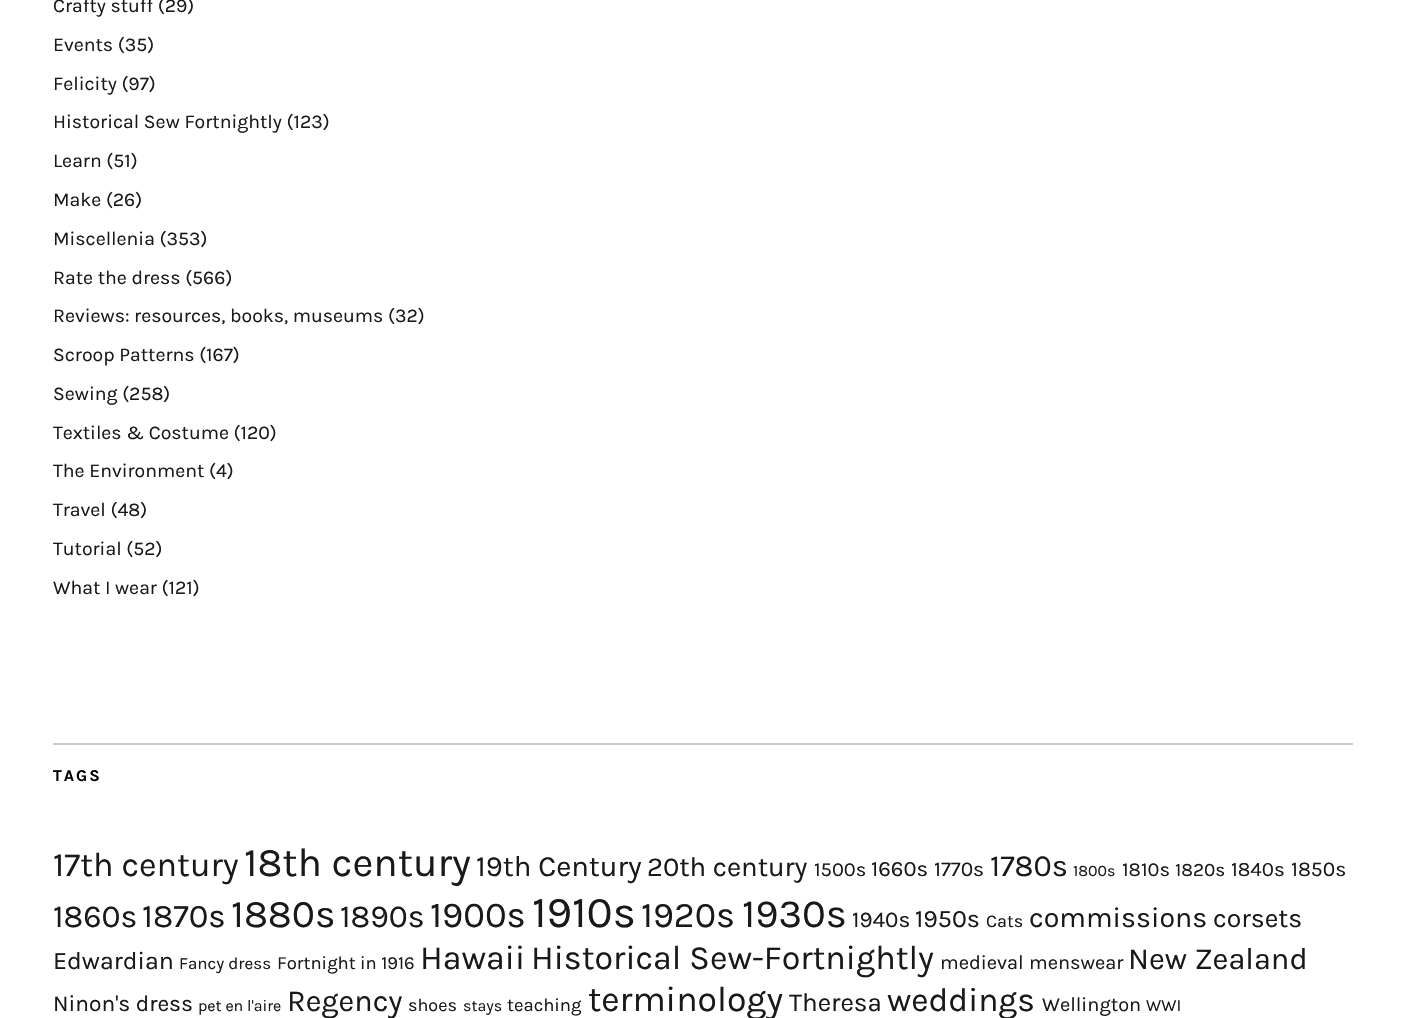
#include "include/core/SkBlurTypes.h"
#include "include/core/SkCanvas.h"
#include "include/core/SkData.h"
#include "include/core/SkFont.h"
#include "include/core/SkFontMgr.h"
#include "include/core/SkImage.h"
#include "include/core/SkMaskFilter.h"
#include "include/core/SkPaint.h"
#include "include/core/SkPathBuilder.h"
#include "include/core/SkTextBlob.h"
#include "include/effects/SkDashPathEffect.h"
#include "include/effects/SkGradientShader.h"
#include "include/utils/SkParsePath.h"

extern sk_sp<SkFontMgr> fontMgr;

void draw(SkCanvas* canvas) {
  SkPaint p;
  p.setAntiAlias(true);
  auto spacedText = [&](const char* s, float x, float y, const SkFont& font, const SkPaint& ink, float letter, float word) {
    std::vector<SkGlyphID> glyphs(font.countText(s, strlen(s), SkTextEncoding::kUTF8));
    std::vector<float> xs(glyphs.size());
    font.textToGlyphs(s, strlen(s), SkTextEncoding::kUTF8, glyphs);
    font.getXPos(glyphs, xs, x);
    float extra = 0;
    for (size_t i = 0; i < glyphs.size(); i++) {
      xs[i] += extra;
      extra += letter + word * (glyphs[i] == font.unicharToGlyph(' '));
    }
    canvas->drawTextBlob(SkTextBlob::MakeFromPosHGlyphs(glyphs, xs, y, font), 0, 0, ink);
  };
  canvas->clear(SK_ColorWHITE);
  p.setColor(SkColorSetRGB(204, 204, 204));
  canvas->drawRect(SkRect::MakeLTRB(53, 743, 1353, 745), p);
  SkFont font1(fontMgr->matchFamilyStyle("Karla", SkFontStyle::Normal()), 19.5f);
  font1.setSubpixel(true);
  p.setColor(SkColorSetRGB(25, 25, 25));
  canvas->drawString("Crafty stuff (29)", 53, 12, font1, p);
  canvas->drawString("Events (35)", 53, 51, font1, p);
  canvas->drawString("Felicity (97)", 53, 90, font1, p);
  canvas->drawString("Historical Sew Fortnightly (123)", 53, 128, font1, p);
  canvas->drawString("Learn (51)", 53, 167, font1, p);
  canvas->drawString("Make (26)", 53, 206, font1, p);
  canvas->drawString("Miscellenia (353)", 53, 245, font1, p);
  canvas->drawString("Rate the dress (566)", 53, 284, font1, p);
  canvas->drawString("Reviews: resources, books, museums (32)", 53, 322, font1, p);
  canvas->drawString("Scroop Patterns (167)", 53, 361, font1, p);
  canvas->drawString("Sewing (258)", 53, 400, font1, p);
  canvas->drawString("Textiles & Costume (120)", 53, 439, font1, p);
  canvas->drawString("The Environment (4)", 53, 477, font1, p);
  canvas->drawString("Travel (48)", 53, 516, font1, p);
  canvas->drawString("Tutorial (52)", 53, 555, font1, p);
  canvas->drawString("What I wear (121)", 53, 594, font1, p);
  SkFont font2(fontMgr->matchFamilyStyle("Karla", SkFontStyle::Bold()), 16.5f);
  font2.setSubpixel(true);
  p.setColor(SK_ColorBLACK);
  spacedText("TAGS", 53, 781, font2, p, 2, 0);
  SkFont font3(fontMgr->matchFamilyStyle("Karla", SkFontStyle::Normal()), 34);
  font3.setSubpixel(true);
  p.setColor(SkColorSetRGB(25, 25, 25));
  canvas->drawString("17th century", 53, 876, font3, p);
  SkFont font4(fontMgr->matchFamilyStyle("Karla", SkFontStyle::Normal()), 40.5f);
  font4.setSubpixel(true);
  canvas->drawString("18th century", 244, 876, font4, p);
  SkFont font5(fontMgr->matchFamilyStyle("Karla", SkFontStyle::Normal()), 29.25f);
  font5.setSubpixel(true);
  canvas->drawString("19th Century", 476, 876, font5, p);
  SkFont font6(fontMgr->matchFamilyStyle("Karla", SkFontStyle::Normal()), 27.5f);
  font6.setSubpixel(true);
  canvas->drawString("20th century", 647, 876, font6, p);
  SkFont font7(fontMgr->matchFamilyStyle("Karla", SkFontStyle::Normal()), 20);
  font7.setSubpixel(true);
  canvas->drawString("1500s", 814, 876, font7, p);
  SkFont font8(fontMgr->matchFamilyStyle("Karla", SkFontStyle::Normal()), 22);
  font8.setSubpixel(true);
  canvas->drawString("1660s", 871, 876, font8, p);
  SkFont font9(fontMgr->matchFamilyStyle("Karla", SkFontStyle::Normal()), 21);
  font9.setSubpixel(true);
  canvas->drawString("1770s", 934, 876, font9, p);
  SkFont font10(fontMgr->matchFamilyStyle("Karla", SkFontStyle::Normal()), 30.75f);
  font10.setSubpixel(true);
  canvas->drawString("1780s", 990, 876, font10, p);
  SkFont font11(fontMgr->matchFamilyStyle("Karla", SkFontStyle::Normal()), 16);
  font11.setSubpixel(true);
  canvas->drawString("1800s", 1073, 876, font11, p);
  canvas->drawString("1810s", 1122, 876, font7, p);
  SkFont font12(fontMgr->matchFamilyStyle("Karla", SkFontStyle::Normal()), 19);
  font12.setSubpixel(true);
  canvas->drawString("1820s", 1175, 876, font12, p);
  SkFont font13(fontMgr->matchFamilyStyle("Karla", SkFontStyle::Normal()), 20.5f);
  font13.setSubpixel(true);
  canvas->drawString("1840s", 1231, 876, font13, p);
  canvas->drawString("1850s", 1291, 876, font9, p);
  SkFont font14(fontMgr->matchFamilyStyle("Karla", SkFontStyle::Normal()), 32);
  font14.setSubpixel(true);
  canvas->drawString("1860s", 53, 927, font14, p);
  SkFont font15(fontMgr->matchFamilyStyle("Karla", SkFontStyle::Normal()), 33);
  font15.setSubpixel(true);
  canvas->drawString("1870s", 142, 927, font15, p);
  SkFont font16(fontMgr->matchFamilyStyle("Karla", SkFontStyle::Normal()), 39);
  font16.setSubpixel(true);
  canvas->drawString("1880s", 231, 927, font16, p);
  canvas->drawString("1890s", 340, 927, font14, p);
  SkFont font17(fontMgr->matchFamilyStyle("Karla", SkFontStyle::Normal()), 36.5f);
  font17.setSubpixel(true);
  canvas->drawString("1900s", 430, 927, font17, p);
  SkFont font18(fontMgr->matchFamilyStyle("Karla", SkFontStyle::Normal()), 44);
  font18.setSubpixel(true);
  canvas->drawString("1910s", 532, 927, font18, p);
  SkFont font19(fontMgr->matchFamilyStyle("Karla", SkFontStyle::Normal()), 36);
  font19.setSubpixel(true);
  canvas->drawString("1920s", 641, 927, font19, p);
  SkFont font20(fontMgr->matchFamilyStyle("Karla", SkFontStyle::Normal()), 40);
  font20.setSubpixel(true);
  canvas->drawString("1930s", 742, 927, font20, p);
  SkFont font21(fontMgr->matchFamilyStyle("Karla", SkFontStyle::Normal()), 22.5f);
  font21.setSubpixel(true);
  canvas->drawString("1940s", 852, 927, font21, p);
  SkFont font22(fontMgr->matchFamilyStyle("Karla", SkFontStyle::Normal()), 25);
  font22.setSubpixel(true);
  canvas->drawString("1950s", 915, 927, font22, p);
  SkFont font23(fontMgr->matchFamilyStyle("Karla", SkFontStyle::Normal()), 18);
  font23.setSubpixel(true);
  canvas->drawString("Cats", 986, 927, font23, p);
  SkFont font24(fontMgr->matchFamilyStyle("Karla", SkFontStyle::Normal()), 28.5f);
  font24.setSubpixel(true);
  canvas->drawString("commissions", 1029, 927, font24, p);
  SkFont font25(fontMgr->matchFamilyStyle("Karla", SkFontStyle::Normal()), 26.5f);
  font25.setSubpixel(true);
  canvas->drawString("corsets", 1213, 927, font25, p);
  canvas->drawString("Edwardian", 53, 969, font22, p);
  SkFont font26(fontMgr->matchFamilyStyle("Karla", SkFontStyle::Normal()), 17);
  font26.setSubpixel(true);
  canvas->drawString("Fancy dress", 179, 969, font26, p);
  SkFont font27(fontMgr->matchFamilyStyle("Karla", SkFontStyle::Normal()), 18.5f);
  font27.setSubpixel(true);
  canvas->drawString("Fortnight in 1916", 277, 969, font27, p);
  canvas->drawString("Hawaii", 420, 969, font3, p);
  canvas->drawString("Historical Sew-Fortnightly", 531, 969, font3, p);
  canvas->drawString("medieval", 940, 969, font7, p);
  canvas->drawString("menswear", 1029, 969, font7, p);
  canvas->drawString("New Zealand", 1128, 969, font10, p);
  SkFont font28(fontMgr->matchFamilyStyle("Karla", SkFontStyle::Normal()), 22.75f);
  font28.setSubpixel(true);
  canvas->drawString("Ninon's dress", 53, 1011, font28, p);
  canvas->drawString("pet en l'aire", 198, 1011, font11, p);
  SkFont font29(fontMgr->matchFamilyStyle("Karla", SkFontStyle::Normal()), 30.5f);
  font29.setSubpixel(true);
  canvas->drawString("Regency", 287, 1011, font29, p);
  canvas->drawString("shoes", 408, 1011, font23, p);
  canvas->drawString("stays", 463, 1011, font11, p);
  canvas->drawString("teaching", 507, 1011, font27, p);
  SkFont font30(fontMgr->matchFamilyStyle("Karla", SkFontStyle::Normal()), 35.5f);
  font30.setSubpixel(true);
  canvas->drawString("terminology", 588, 1011, font30, p);
  SkFont font31(fontMgr->matchFamilyStyle("Karla", SkFontStyle::Normal()), 26);
  font31.setSubpixel(true);
  canvas->drawString("Theresa", 789, 1011, font31, p);
  SkFont font32(fontMgr->matchFamilyStyle("Karla", SkFontStyle::Normal()), 33.5f);
  font32.setSubpixel(true);
  canvas->drawString("weddings", 887, 1011, font32, p);
  canvas->drawString("Wellington", 1042, 1011, font7, p);
  canvas->drawString("WWI", 1146, 1011, font26, p);
}
